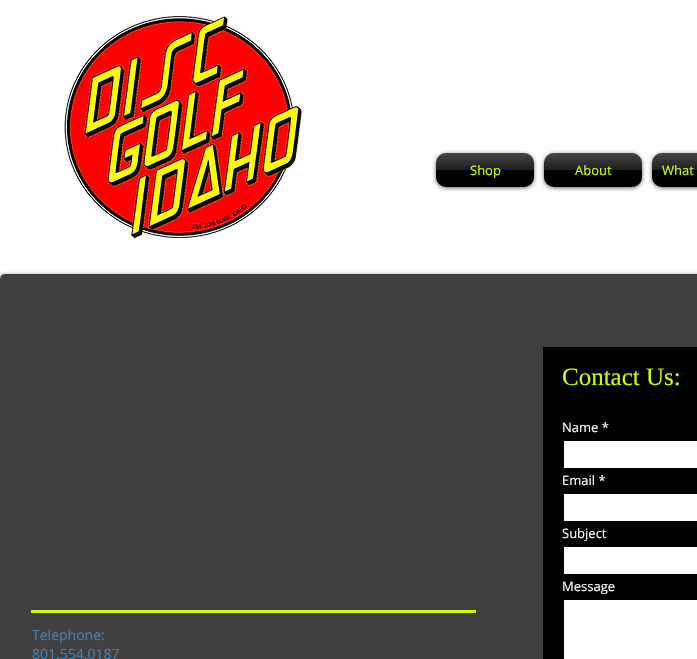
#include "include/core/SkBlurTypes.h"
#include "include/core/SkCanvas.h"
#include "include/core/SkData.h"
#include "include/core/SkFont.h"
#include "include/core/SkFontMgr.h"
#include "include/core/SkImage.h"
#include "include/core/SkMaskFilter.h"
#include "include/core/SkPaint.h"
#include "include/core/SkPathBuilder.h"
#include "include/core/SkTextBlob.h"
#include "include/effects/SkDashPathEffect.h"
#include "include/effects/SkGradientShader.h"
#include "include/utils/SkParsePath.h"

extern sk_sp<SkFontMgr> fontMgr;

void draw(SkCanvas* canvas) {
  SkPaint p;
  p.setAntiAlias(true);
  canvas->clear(SK_ColorWHITE);
  canvas->drawImageRect(SkImages::DeferredFromEncodedData(SkData::MakeFromFileName("images/1.png")), SkRect::MakeLTRB(64, 16, 302, 239), SkSamplingOptions());
  p.setColor(SkColorSetARGB(153, 0, 0, 0));
  p.setMaskFilter(SkMaskFilter::MakeBlur(kNormal_SkBlurStyle, 2));
  canvas->drawRoundRect(SkRect::MakeLTRB(436, 154, 534, 188), 10, 10, p);
  p.setMaskFilter(nullptr);
  p.setColor(SK_ColorBLACK);
  canvas->drawRoundRect(SkRect::MakeLTRB(436, 153, 534, 187), 10, 10, p);
  canvas->drawImageRect(SkImages::DeferredFromEncodedData(SkData::MakeFromFileName("images/2.png")), SkRect::MakeLTRB(436, 153, 534, 170), SkSamplingOptions());
  p.setColor(SkColorSetARGB(153, 0, 0, 0));
  p.setMaskFilter(SkMaskFilter::MakeBlur(kNormal_SkBlurStyle, 2));
  canvas->drawRoundRect(SkRect::MakeLTRB(544, 154, 642, 188), 10, 10, p);
  p.setMaskFilter(nullptr);
  p.setColor(SK_ColorBLACK);
  canvas->drawRoundRect(SkRect::MakeLTRB(544, 153, 642, 187), 10, 10, p);
  canvas->drawImageRect(SkImages::DeferredFromEncodedData(SkData::MakeFromFileName("images/2.png")), SkRect::MakeLTRB(544, 153, 642, 170), SkSamplingOptions());
  p.setColor(SkColorSetARGB(153, 0, 0, 0));
  p.setMaskFilter(SkMaskFilter::MakeBlur(kNormal_SkBlurStyle, 2));
  canvas->drawRoundRect(SkRect::MakeLTRB(652, 154, 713, 188), 10, 10, p);
  p.setMaskFilter(nullptr);
  p.setColor(SK_ColorBLACK);
  canvas->drawRoundRect(SkRect::MakeLTRB(652, 153, 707, 187), 10, 10, p);
  canvas->drawImageRect(SkImages::DeferredFromEncodedData(SkData::MakeFromFileName("images/3.png")), SkRect::MakeLTRB(652, 153, 697, 170), SkSamplingOptions());
  canvas->save();
  canvas->clipPath(SkPathBuilder(SkPathFillType::kEvenOdd).moveTo(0, 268).lineTo(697, 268).lineTo(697, 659).lineTo(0, 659).close().moveTo(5, 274).lineTo(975, 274).cubicTo(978, 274, 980, 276, 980, 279).lineTo(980, 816).cubicTo(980, 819, 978, 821, 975, 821).lineTo(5, 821).cubicTo(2, 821, 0, 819, 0, 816).lineTo(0, 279).cubicTo(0, 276, 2, 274, 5, 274).close().detach(), true);
  p.setColor(SkColorSetARGB(153, 0, 0, 0));
  p.setMaskFilter(SkMaskFilter::MakeBlur(kNormal_SkBlurStyle, 2));
  canvas->drawRoundRect(SkRect::MakeLTRB(0, 275, 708, 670), 5, 5, p);
  p.setMaskFilter(nullptr);
  canvas->restore();
  p.setColor(SkColorSetARGB(191, 0, 0, 0));
  canvas->drawRoundRect(SkRect::MakeLTRB(0, 274, 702, 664), 5, 5, p);
  p.setColor(SK_ColorBLACK);
  canvas->drawRect(SkRect::MakeLTRB(543, 347, 697, 659), p);
  p.setColor(SK_ColorWHITE);
  canvas->drawRect(SkRect::MakeLTRB(564, 441, 697, 468), p);
  canvas->drawRect(SkRect::MakeLTRB(564, 494, 697, 521), p);
  canvas->drawRect(SkRect::MakeLTRB(564, 547, 697, 574), p);
  canvas->drawRect(SkRect::MakeLTRB(564, 600, 697, 659), p);
  p.setColor(SkColorSetRGB(204, 255, 0));
  canvas->drawRect(SkRect::MakeLTRB(31, 610, 476, 613), p);
  SkFont font1(fontMgr->matchFamilyStyle("Open Sans", SkFontStyle::Normal()), 13);
  font1.setSubpixel(true);
  canvas->drawString("Shop", 470, 175, font1, p);
  canvas->drawString("About", 575, 175, font1, p);
  canvas->drawString("What", 662, 175, font1, p);
  SkFont font2(fontMgr->matchFamilyStyle("Liberation Serif", SkFontStyle::Normal()), 25);
  font2.setSubpixel(true);
  canvas->drawString("Contact Us:", 562, 385, font2, p);
  p.setColor(SK_ColorWHITE);
  canvas->drawString("Name *", 562, 432, font1, p);
  canvas->drawString("Email *", 562, 485, font1, p);
  canvas->drawString("Subject", 562, 538, font1, p);
  canvas->drawString("Message", 562, 591, font1, p);
  SkFont font3(fontMgr->matchFamilyStyle("Open Sans", SkFontStyle::Normal()), 14);
  font3.setSubpixel(true);
  p.setColor(SkColorSetRGB(70, 130, 180));
  canvas->drawString("Telephone:", 32, 640, font3, p);
  canvas->drawString("801.554.0187", 32, 659, font3, p);
}
